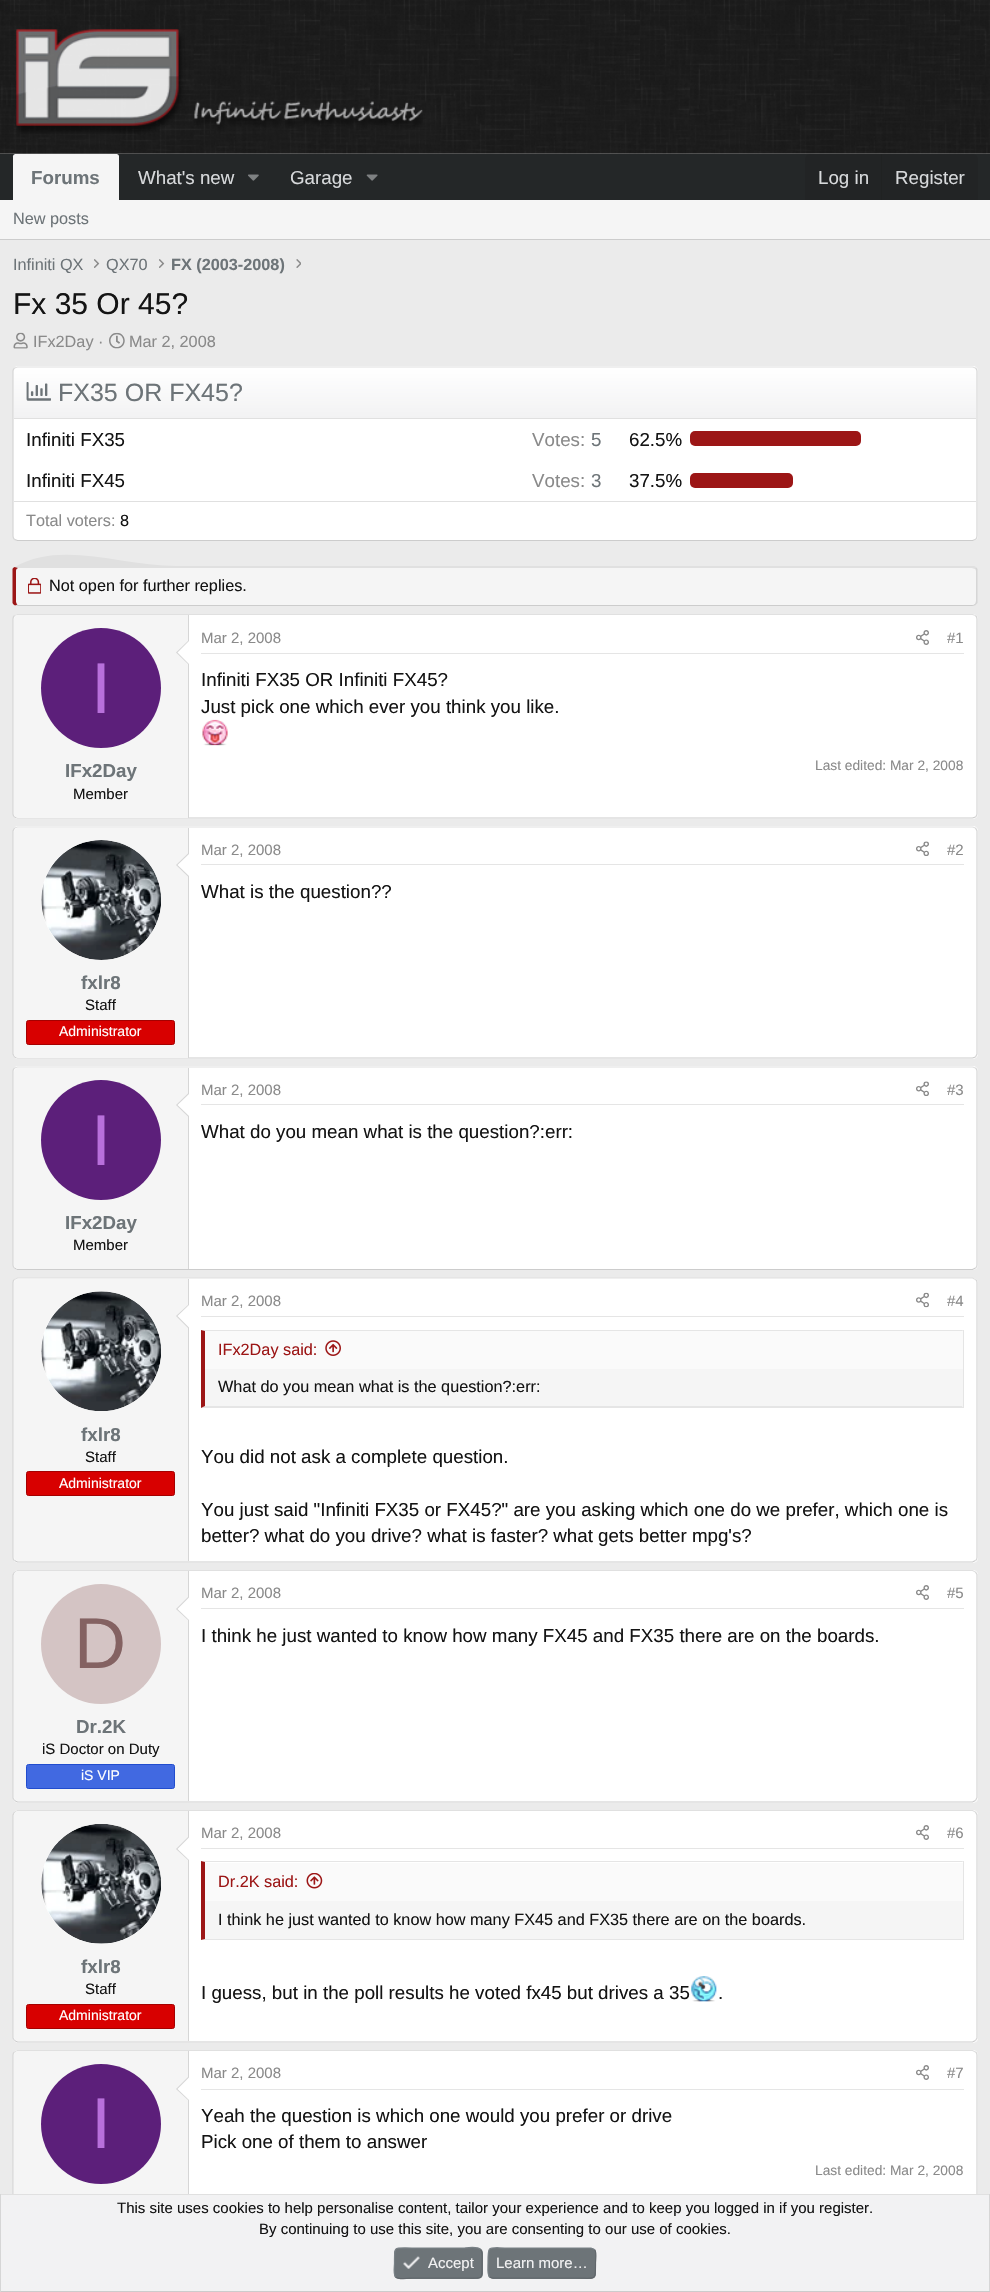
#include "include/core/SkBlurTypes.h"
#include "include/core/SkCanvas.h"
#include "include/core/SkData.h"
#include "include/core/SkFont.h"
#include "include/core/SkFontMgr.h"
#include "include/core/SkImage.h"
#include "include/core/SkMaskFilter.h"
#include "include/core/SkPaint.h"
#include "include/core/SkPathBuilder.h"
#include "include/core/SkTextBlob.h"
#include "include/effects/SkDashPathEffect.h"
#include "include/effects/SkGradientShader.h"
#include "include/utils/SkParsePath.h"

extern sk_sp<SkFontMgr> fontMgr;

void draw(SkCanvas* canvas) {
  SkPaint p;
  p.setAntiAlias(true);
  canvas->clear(SkColorSetRGB(235, 235, 235));
  canvas->drawImageRect(SkImages::DeferredFromEncodedData(SkData::MakeFromFileName("images/1.png")), SkRect::MakeLTRB(0, 0, 990, 154), SkSamplingOptions());
  canvas->drawImageRect(SkImages::DeferredFromEncodedData(SkData::MakeFromFileName("images/2.png")), SkRect::MakeLTRB(16, 29, 423, 134), SkSamplingOptions());
  p.setColor(SkColorSetRGB(36, 39, 40));
  canvas->drawRect(SkRect::MakeLTRB(0, 154, 990, 200), p);
  p.setColor(SkColorSetRGB(245, 245, 245));
  canvas->drawPath(SkPathBuilder().moveTo(15.5f, 154).lineTo(116.5f, 154).cubicTo(118, 154, 119, 155, 119, 156.5f).lineTo(119, 200).lineTo(13, 200).lineTo(13, 156.5f).cubicTo(13, 155, 14, 154, 15.5f, 154).close().detach(), p);
  canvas->drawImageRect(SkImages::DeferredFromEncodedData(SkData::MakeFromFileName("images/3.png")), SkRect::MakeLTRB(248, 174, 259, 181), SkSamplingOptions());
  canvas->drawImageRect(SkImages::DeferredFromEncodedData(SkData::MakeFromFileName("images/4.png")), SkRect::MakeLTRB(366, 174, 378, 181), SkSamplingOptions());
  p.setColor(SkColorSetRGB(34, 36, 37));
  canvas->drawPath(SkPathBuilder().moveTo(810, 154).lineTo(973, 154).cubicTo(976, 154, 978, 156, 978, 159).lineTo(978, 200).lineTo(805, 200).lineTo(805, 159).cubicTo(805, 156, 807, 154, 810, 154).close().detach(), p);
  p.setColor(SkColorSetRGB(32, 34, 34));
  canvas->drawRect(SkRect::MakeLTRB(881, 154, 882, 200), p);
  p.setColor(SkColorSetRGB(245, 245, 245));
  canvas->drawRect(SkRect::MakeLTRB(0, 200, 990, 239), p);
  p.setColor(SkColorSetRGB(204, 204, 204));
  canvas->drawRect(SkRect::MakeLTRB(0, 239, 990, 240), p);
  canvas->drawImageRect(SkImages::DeferredFromEncodedData(SkData::MakeFromFileName("images/5.png")), SkRect::MakeLTRB(94, 259, 100, 268), SkSamplingOptions());
  canvas->drawImageRect(SkImages::DeferredFromEncodedData(SkData::MakeFromFileName("images/5.png")), SkRect::MakeLTRB(159, 259, 165, 268), SkSamplingOptions());
  canvas->drawImageRect(SkImages::DeferredFromEncodedData(SkData::MakeFromFileName("images/6.png")), SkRect::MakeLTRB(296, 259, 301, 268), SkSamplingOptions());
  canvas->drawImageRect(SkImages::DeferredFromEncodedData(SkData::MakeFromFileName("images/7.png")), SkRect::MakeLTRB(13, 332, 28, 349), SkSamplingOptions());
  canvas->drawImageRect(SkImages::DeferredFromEncodedData(SkData::MakeFromFileName("images/8.png")), SkRect::MakeLTRB(109, 332, 125, 349), SkSamplingOptions());
  p.setColor(SK_ColorWHITE);
  canvas->drawRoundRect(SkRect::MakeLTRB(13, 366, 978, 541), 5, 5, p);
  p.setStyle(SkPaint::kStroke_Style);
  p.setStrokeWidth(1.2f);
  p.setColor(SkColorSetRGB(224, 224, 224));
  canvas->drawPath(SkPathBuilder().moveTo(14.5f, 368).lineTo(17.5f, 367).lineTo(972.5f, 367).lineTo(975.5f, 368).detach(), p);
  p.setColor(SkColorSetRGB(214, 214, 214));
  canvas->drawPath(SkPathBuilder().moveTo(975.5f, 368).cubicTo(976.5f, 369, 977, 370, 977, 371).lineTo(977, 536).cubicTo(977, 537.5f, 976.5f, 538.5f, 975.5f, 539.5f).detach(), p);
  p.setColor(SkColorSetRGB(204, 204, 204));
  canvas->drawPath(SkPathBuilder().moveTo(975.5f, 539.5f).lineTo(972.5f, 540.5f).lineTo(17.5f, 540.5f).lineTo(14.5f, 539.5f).detach(), p);
  p.setColor(SkColorSetRGB(214, 214, 214));
  canvas->drawPath(SkPathBuilder().moveTo(14.5f, 539.5f).cubicTo(13.5f, 538.5f, 13, 537.5f, 13, 536).lineTo(13, 371).cubicTo(13, 370, 13.5f, 369, 14.5f, 368).detach(), p);
  p.setStyle(SkPaint::kFill_Style);
  {
    const SkColor colors[] = {SkColorSetRGB(242, 242, 243), SK_ColorWHITE};
    const float stops[] = {0, 1};
    const SkPoint ends[] = {{495, 418}, {495, 368}};
    p.setShader(SkGradientShader::MakeLinear(ends, colors, stops, 2, SkTileMode::kClamp));
    p.setAlpha(255);
  }
  canvas->drawPath(SkPathBuilder().moveTo(18, 368).lineTo(972, 368).cubicTo(974, 368, 976, 370, 976, 372).lineTo(976, 418).lineTo(14, 418).lineTo(14, 372).cubicTo(14, 370, 16, 368, 18, 368).close().detach(), p);
  p.setShader(nullptr);
  p.setColor(SkColorSetRGB(224, 224, 224));
  canvas->drawRect(SkRect::MakeLTRB(14, 418, 976, 419), p);
  canvas->drawImageRect(SkImages::DeferredFromEncodedData(SkData::MakeFromFileName("images/9.png")), SkRect::MakeLTRB(26, 382, 51, 401), SkSamplingOptions());
  p.setColor(SkColorSetRGB(156, 22, 22));
  canvas->drawRoundRect(SkRect::MakeLTRB(690, 431, 861, 446), 5, 5, p);
  canvas->drawRoundRect(SkRect::MakeLTRB(690, 473, 793, 488), 5, 5, p);
  p.setColor(SkColorSetRGB(224, 224, 224));
  canvas->drawRect(SkRect::MakeLTRB(14, 501, 976, 502), p);
  p.setColor(SkColorSetRGB(245, 245, 245));
  canvas->drawPath(SkPathBuilder().moveTo(18, 568).lineTo(972, 568).cubicTo(975, 568, 976, 569, 976, 571).lineTo(976, 601).cubicTo(976, 603, 975, 605, 972, 605).lineTo(18, 605).cubicTo(17, 605, 16, 603, 16, 601).lineTo(16, 571).cubicTo(16, 569, 17, 568, 18, 568).close().detach(), p);
  p.setColor(SkColorSetRGB(224, 224, 224));
  canvas->drawPath(SkPathBuilder().moveTo(18, 568).lineTo(15, 567).cubicTo(61, 540, 122, 566, 176, 566).lineTo(974, 566).lineTo(976, 567).lineTo(975, 569).lineTo(972, 568).close().detach(), p);
  p.setColor(SkColorSetRGB(214, 214, 214));
  canvas->drawPath(SkPathBuilder().moveTo(977.5f, 603).lineTo(976, 604.5f).lineTo(975, 604).cubicTo(975.5f, 603, 976, 602, 976, 601).lineTo(976, 571).cubicTo(976, 570, 975.5f, 569, 975, 568.5f).lineTo(976.5f, 567.5f).lineTo(977.5f, 569).close().detach(), p);
  p.setColor(SkColorSetRGB(204, 204, 204));
  canvas->drawPath(SkPathBuilder().moveTo(976, 605).lineTo(972, 606).lineTo(18, 606).lineTo(15, 605).lineTo(17, 605).lineTo(972, 605).cubicTo(973, 605, 974, 605, 975, 604).close().detach(), p);
  p.setColor(SkColorSetRGB(156, 22, 22));
  canvas->drawPath(SkPathBuilder().moveTo(12.5f, 569).cubicTo(13, 568, 13.5f, 567.5f, 14.5f, 567).lineTo(18, 568).lineTo(16.5f, 569).lineTo(16, 570.5f).lineTo(16, 602).cubicTo(16.5f, 603, 16.5f, 604, 17.5f, 604.5f).lineTo(15, 605.5f).cubicTo(14, 605, 13, 604, 12.5f, 603).close().detach(), p);
  canvas->drawImageRect(SkImages::DeferredFromEncodedData(SkData::MakeFromFileName("images/10.png")), SkRect::MakeLTRB(28, 578, 41, 594), SkSamplingOptions());
  p.setColor(SK_ColorWHITE);
  canvas->drawRoundRect(SkRect::MakeLTRB(13, 614, 978, 819), 5, 5, p);
  p.setStyle(SkPaint::kStroke_Style);
  p.setColor(SkColorSetRGB(224, 224, 224));
  canvas->drawPath(SkPathBuilder().moveTo(14.5f, 615.5f).lineTo(17.5f, 614.5f).lineTo(972.5f, 614.5f).lineTo(975.5f, 615.5f).detach(), p);
  p.setColor(SkColorSetRGB(214, 214, 214));
  canvas->drawPath(SkPathBuilder().moveTo(975.5f, 615.5f).cubicTo(976.5f, 616.5f, 977, 617.5f, 977, 619).lineTo(977, 814).cubicTo(977, 815, 976.5f, 816, 975.5f, 817).detach(), p);
  p.setColor(SkColorSetRGB(204, 204, 204));
  canvas->drawPath(SkPathBuilder().moveTo(975.5f, 817).lineTo(972.5f, 818).lineTo(17.5f, 818).lineTo(14.5f, 817).detach(), p);
  p.setColor(SkColorSetRGB(214, 214, 214));
  canvas->drawPath(SkPathBuilder().moveTo(14.5f, 817).cubicTo(13.5f, 816, 13, 815, 13, 814).lineTo(13, 619).cubicTo(13, 617.5f, 13.5f, 616.5f, 14.5f, 615.5f).detach(), p);
  p.setStyle(SkPaint::kFill_Style);
  p.setColor(SkColorSetRGB(245, 245, 245));
  canvas->drawPath(SkPathBuilder().moveTo(18, 615).lineTo(189, 615).lineTo(189, 818).lineTo(18, 818).cubicTo(16, 818, 14, 816, 14, 814).lineTo(14, 619).cubicTo(14, 617, 16, 615, 18, 615).close().detach(), p);
  p.setColor(SkColorSetRGB(214, 214, 214));
  canvas->drawRect(SkRect::MakeLTRB(188, 615, 189, 818), p);
  canvas->drawPath(SkPathBuilder().moveTo(189, 640).lineTo(189, 665).lineTo(176, 652.5f).close().detach(), p);
  p.setColor(SK_ColorWHITE);
  canvas->drawPath(SkPathBuilder().moveTo(189, 641).lineTo(189, 664).lineTo(177.5f, 652.5f).close().detach(), p);
  p.setColor(SkColorSetRGB(92, 31, 122));
  canvas->drawCircle(101, 688, 60, p);
  p.setColor(SkColorSetRGB(229, 229, 229));
  canvas->drawRect(SkRect::MakeLTRB(201, 653, 964, 654), p);
  canvas->drawImageRect(SkImages::DeferredFromEncodedData(SkData::MakeFromFileName("images/11.png")), SkRect::MakeLTRB(916, 630, 929, 645), SkSamplingOptions());
  canvas->drawImageRect(SkImages::DeferredFromEncodedData(SkData::MakeFromFileName("images/12.png")), SkRect::MakeLTRB(202, 719, 228, 746), SkSamplingOptions());
  p.setColor(SK_ColorWHITE);
  canvas->drawRoundRect(SkRect::MakeLTRB(13, 826, 978, 1059), 5, 5, p);
  p.setStyle(SkPaint::kStroke_Style);
  p.setColor(SkColorSetRGB(224, 224, 224));
  canvas->drawPath(SkPathBuilder().moveTo(14.5f, 828).lineTo(17.5f, 827).lineTo(972.5f, 827).lineTo(975.5f, 828).detach(), p);
  p.setColor(SkColorSetRGB(214, 214, 214));
  canvas->drawPath(SkPathBuilder().moveTo(975.5f, 828).lineTo(977, 831).lineTo(977, 1016.5f).lineTo(977, 1054).lineTo(975.5f, 1057).detach(), p);
  p.setColor(SkColorSetRGB(204, 204, 204));
  canvas->drawPath(SkPathBuilder().moveTo(975.5f, 1057).lineTo(972.5f, 1058).lineTo(17.5f, 1058).lineTo(14.5f, 1057).detach(), p);
  p.setColor(SkColorSetRGB(214, 214, 214));
  canvas->drawPath(SkPathBuilder().moveTo(14.5f, 1057).lineTo(13, 1054).lineTo(13, 831).lineTo(14.5f, 828).detach(), p);
  p.setStyle(SkPaint::kFill_Style);
  p.setColor(SkColorSetRGB(229, 229, 229));
  canvas->drawRect(SkRect::MakeLTRB(201, 864, 964, 865), p);
  canvas->drawImageRect(SkImages::DeferredFromEncodedData(SkData::MakeFromFileName("images/13.png")), SkRect::MakeLTRB(916, 841, 929, 856), SkSamplingOptions());
  p.setColor(SkColorSetRGB(245, 245, 245));
  canvas->drawPath(SkPathBuilder().moveTo(18, 828).lineTo(189, 828).lineTo(189, 1058).lineTo(18, 1058).cubicTo(16, 1058, 14, 1056, 14, 1054).lineTo(14, 832).cubicTo(14, 830, 16, 828, 18, 828).close().detach(), p);
  p.setColor(SkColorSetRGB(214, 214, 214));
  canvas->drawRect(SkRect::MakeLTRB(188, 828, 189, 1058), p);
  p.setColor(SK_ColorWHITE);
  canvas->drawCircle(101, 900, 60, p);
  canvas->drawImageRect(SkImages::DeferredFromEncodedData(SkData::MakeFromFileName("images/14.png")), SkRect::MakeLTRB(41, 840, 161, 960), SkSamplingOptions());
  p.setColor(SkColorSetRGB(214, 214, 214));
  canvas->drawPath(SkPathBuilder().moveTo(189, 852.5f).lineTo(189, 877.5f).lineTo(176, 865).close().detach(), p);
  p.setColor(SK_ColorWHITE);
  canvas->drawPath(SkPathBuilder().moveTo(189, 854).lineTo(189, 876).lineTo(177.5f, 865).close().detach(), p);
  p.setColor(SkColorSetRGB(216, 0, 0));
  canvas->drawRoundRect(SkRect::MakeLTRB(26.5f, 1020.5f, 174.5f, 1044.5f), 2, 2, p);
  p.setStyle(SkPaint::kStroke_Style);
  p.setStrokeWidth(1);
  p.setColor(SkColorSetRGB(165, 0, 0));
  canvas->drawRoundRect(SkRect::MakeLTRB(26.5f, 1020.5f, 174.5f, 1044.5f), 2, 2, p);
  p.setStyle(SkPaint::kFill_Style);
  p.setColor(SK_ColorWHITE);
  canvas->drawRoundRect(SkRect::MakeLTRB(13, 1066, 978, 1270), 5, 5, p);
  p.setStyle(SkPaint::kStroke_Style);
  p.setStrokeWidth(1.2f);
  p.setColor(SkColorSetRGB(224, 224, 224));
  canvas->drawPath(SkPathBuilder().moveTo(14.5f, 1068).lineTo(17.5f, 1067).lineTo(972.5f, 1067).lineTo(975.5f, 1068).detach(), p);
  p.setColor(SkColorSetRGB(214, 214, 214));
  canvas->drawPath(SkPathBuilder().moveTo(975.5f, 1068).cubicTo(976.5f, 1069, 977, 1070, 977, 1071).lineTo(977, 1265).cubicTo(977, 1266, 976.5f, 1267.5f, 975.5f, 1268).detach(), p);
  p.setColor(SkColorSetRGB(204, 204, 204));
  canvas->drawPath(SkPathBuilder().moveTo(975.5f, 1268).lineTo(972.5f, 1269.5f).lineTo(17.5f, 1269.5f).lineTo(14.5f, 1268).detach(), p);
  p.setColor(SkColorSetRGB(214, 214, 214));
  canvas->drawPath(SkPathBuilder().moveTo(14.5f, 1268).cubicTo(13.5f, 1267.5f, 13, 1266, 13, 1265).lineTo(13, 1071).cubicTo(13, 1070, 13.5f, 1069, 14.5f, 1068).detach(), p);
  p.setStyle(SkPaint::kFill_Style);
  p.setColor(SkColorSetRGB(245, 245, 245));
  canvas->drawPath(SkPathBuilder().moveTo(18, 1068).lineTo(189, 1068).lineTo(189, 1269).lineTo(18, 1269).cubicTo(16, 1269, 14, 1267, 14, 1265).lineTo(14, 1072).cubicTo(14, 1070, 16, 1068, 18, 1068).close().detach(), p);
  p.setColor(SkColorSetRGB(214, 214, 214));
  canvas->drawRect(SkRect::MakeLTRB(188, 1068, 189, 1269), p);
  canvas->drawPath(SkPathBuilder().moveTo(189, 1092.5f).lineTo(189, 1117.5f).lineTo(176, 1105).close().detach(), p);
  p.setColor(SK_ColorWHITE);
  canvas->drawPath(SkPathBuilder().moveTo(189, 1094).lineTo(189, 1116).lineTo(177.5f, 1105).close().detach(), p);
  p.setColor(SkColorSetRGB(92, 31, 122));
  canvas->drawCircle(101, 1140, 60, p);
  p.setColor(SkColorSetRGB(229, 229, 229));
  canvas->drawRect(SkRect::MakeLTRB(201, 1104, 964, 1105), p);
  canvas->drawImageRect(SkImages::DeferredFromEncodedData(SkData::MakeFromFileName("images/13.png")), SkRect::MakeLTRB(916, 1081, 929, 1096), SkSamplingOptions());
  p.setColor(SK_ColorWHITE);
  canvas->drawRoundRect(SkRect::MakeLTRB(13, 1278, 978, 1563), 5, 5, p);
  p.setStyle(SkPaint::kStroke_Style);
  p.setColor(SkColorSetRGB(224, 224, 224));
  canvas->drawPath(SkPathBuilder().moveTo(14.5f, 1279.5f).lineTo(17.5f, 1278).lineTo(972.5f, 1278).lineTo(975.5f, 1279.5f).detach(), p);
  p.setColor(SkColorSetRGB(214, 214, 214));
  canvas->drawPath(SkPathBuilder().moveTo(975.5f, 1279.5f).cubicTo(976.5f, 1280, 977, 1281.5f, 977, 1282.5f).lineTo(977, 1557.5f).cubicTo(977, 1558.5f, 976.5f, 1560, 975.5f, 1560.5f).detach(), p);
  p.setColor(SkColorSetRGB(204, 204, 204));
  canvas->drawPath(SkPathBuilder().moveTo(975.5f, 1560.5f).lineTo(972.5f, 1562).lineTo(17.5f, 1562).lineTo(14.5f, 1560.5f).detach(), p);
  p.setColor(SkColorSetRGB(214, 214, 214));
  canvas->drawPath(SkPathBuilder().moveTo(14.5f, 1560.5f).cubicTo(13.5f, 1560, 13, 1558.5f, 13, 1557.5f).lineTo(13, 1282.5f).cubicTo(13, 1281.5f, 13.5f, 1280, 14.5f, 1279.5f).detach(), p);
  p.setStyle(SkPaint::kFill_Style);
  p.setColor(SkColorSetRGB(245, 245, 245));
  canvas->drawPath(SkPathBuilder().moveTo(18, 1279).lineTo(189, 1279).lineTo(189, 1561).lineTo(18, 1561).cubicTo(16, 1561, 14, 1559, 14, 1557).lineTo(14, 1283).cubicTo(14, 1281, 16, 1279, 18, 1279).close().detach(), p);
  p.setColor(SkColorSetRGB(214, 214, 214));
  canvas->drawRect(SkRect::MakeLTRB(188, 1279, 189, 1561), p);
  p.setColor(SK_ColorWHITE);
  canvas->drawCircle(101, 1351, 60, p);
  canvas->drawImageRect(SkImages::DeferredFromEncodedData(SkData::MakeFromFileName("images/15.png")), SkRect::MakeLTRB(41, 1291, 161, 1411), SkSamplingOptions());
  p.setColor(SkColorSetRGB(214, 214, 214));
  canvas->drawPath(SkPathBuilder().moveTo(189, 1304).lineTo(189, 1329).lineTo(176, 1316).close().detach(), p);
  p.setColor(SK_ColorWHITE);
  canvas->drawPath(SkPathBuilder().moveTo(189, 1305).lineTo(189, 1327.5f).lineTo(177.5f, 1316).close().detach(), p);
  p.setColor(SkColorSetRGB(216, 0, 0));
  canvas->drawRoundRect(SkRect::MakeLTRB(26.5f, 1471.5f, 174.5f, 1495.5f), 2, 2, p);
  p.setStyle(SkPaint::kStroke_Style);
  p.setStrokeWidth(1);
  p.setColor(SkColorSetRGB(165, 0, 0));
  canvas->drawRoundRect(SkRect::MakeLTRB(26.5f, 1471.5f, 174.5f, 1495.5f), 2, 2, p);
  p.setStyle(SkPaint::kFill_Style);
  p.setColor(SkColorSetRGB(229, 229, 229));
  canvas->drawRect(SkRect::MakeLTRB(201, 1316, 964, 1317), p);
  canvas->drawImageRect(SkImages::DeferredFromEncodedData(SkData::MakeFromFileName("images/16.png")), SkRect::MakeLTRB(916, 1292, 929, 1308), SkSamplingOptions());
  p.setColor(SkColorSetRGB(245, 245, 245));
  canvas->drawRect(SkRect::MakeLTRB(205, 1369, 963, 1406), p);
  p.setColor(SkColorSetRGB(229, 229, 229));
  canvas->drawPath(SkPathBuilder().moveTo(201, 1330).lineTo(964, 1330).lineTo(962, 1331).lineTo(205, 1331).close().detach(), p);
  canvas->drawRect(SkRect::MakeLTRB(963, 1330, 964, 1408), p);
  canvas->drawPath(SkPathBuilder().moveTo(964, 1408).lineTo(201, 1408).lineTo(205, 1406).lineTo(962, 1406).close().detach(), p);
  p.setColor(SkColorSetRGB(156, 22, 22));
  canvas->drawPath(SkPathBuilder().moveTo(201, 1408).lineTo(201, 1330).lineTo(205, 1331).lineTo(205, 1406).close().detach(), p);
  p.setColor(SkColorSetRGB(250, 250, 250));
  canvas->drawRect(SkRect::MakeLTRB(205, 1331, 963, 1369), p);
  canvas->drawImageRect(SkImages::DeferredFromEncodedData(SkData::MakeFromFileName("images/17.png")), SkRect::MakeLTRB(325, 1340, 341, 1356), SkSamplingOptions());
  p.setColor(SK_ColorWHITE);
  canvas->drawRoundRect(SkRect::MakeLTRB(13, 1570, 978, 1803), 5, 5, p);
  p.setStyle(SkPaint::kStroke_Style);
  p.setStrokeWidth(1.2f);
  p.setColor(SkColorSetRGB(224, 224, 224));
  canvas->drawPath(SkPathBuilder().moveTo(14.5f, 1572).lineTo(17.5f, 1570.5f).lineTo(972.5f, 1570.5f).lineTo(975.5f, 1572).detach(), p);
  p.setColor(SkColorSetRGB(214, 214, 214));
  canvas->drawPath(SkPathBuilder().moveTo(975.5f, 1572).lineTo(977, 1574.5f).lineTo(977, 1760.5f).lineTo(977, 1797.5f).lineTo(975.5f, 1800.5f).detach(), p);
  p.setColor(SkColorSetRGB(204, 204, 204));
  canvas->drawPath(SkPathBuilder().moveTo(975.5f, 1800.5f).lineTo(972.5f, 1802).lineTo(17.5f, 1802).lineTo(14.5f, 1800.5f).detach(), p);
  p.setColor(SkColorSetRGB(214, 214, 214));
  canvas->drawPath(SkPathBuilder().moveTo(14.5f, 1800.5f).lineTo(13, 1798).lineTo(13, 1612).lineTo(13, 1575).lineTo(14.5f, 1572).detach(), p);
  p.setStyle(SkPaint::kFill_Style);
  p.setColor(SkColorSetRGB(245, 245, 245));
  canvas->drawPath(SkPathBuilder().moveTo(18, 1571).lineTo(189, 1571).lineTo(189, 1801).lineTo(18, 1801).cubicTo(16, 1801, 14, 1799, 14, 1797).lineTo(14, 1575).cubicTo(14, 1573, 16, 1571, 18, 1571).close().detach(), p);
  p.setColor(SkColorSetRGB(214, 214, 214));
  canvas->drawRect(SkRect::MakeLTRB(188, 1571, 189, 1801), p);
  canvas->drawPath(SkPathBuilder().moveTo(189, 1596).lineTo(189, 1621).lineTo(176, 1609).close().detach(), p);
  p.setColor(SK_ColorWHITE);
  canvas->drawPath(SkPathBuilder().moveTo(189, 1597.5f).lineTo(189, 1620).lineTo(177.5f, 1609).close().detach(), p);
  p.setColor(SkColorSetRGB(212, 196, 196));
  canvas->drawCircle(101, 1644, 60, p);
  p.setColor(SkColorSetRGB(65, 105, 225));
  canvas->drawRoundRect(SkRect::MakeLTRB(26.5f, 1764.5f, 174.5f, 1788.5f), 2, 2, p);
  p.setStyle(SkPaint::kStroke_Style);
  p.setStrokeWidth(1);
  p.setColor(SkColorSetRGB(33, 76, 206));
  canvas->drawRoundRect(SkRect::MakeLTRB(26.5f, 1764.5f, 174.5f, 1788.5f), 2, 2, p);
  p.setStyle(SkPaint::kFill_Style);
  p.setColor(SkColorSetRGB(229, 229, 229));
  canvas->drawRect(SkRect::MakeLTRB(201, 1608, 964, 1609), p);
  canvas->drawImageRect(SkImages::DeferredFromEncodedData(SkData::MakeFromFileName("images/11.png")), SkRect::MakeLTRB(916, 1585, 929, 1600), SkSamplingOptions());
  p.setColor(SK_ColorWHITE);
  canvas->drawRoundRect(SkRect::MakeLTRB(13, 1810, 978, 2043), 5, 5, p);
  p.setStyle(SkPaint::kStroke_Style);
  p.setStrokeWidth(1.2f);
  p.setColor(SkColorSetRGB(224, 224, 224));
  canvas->drawPath(SkPathBuilder().moveTo(14.5f, 1812).lineTo(17.5f, 1810.5f).lineTo(972.5f, 1810.5f).lineTo(975.5f, 1812).detach(), p);
  p.setColor(SkColorSetRGB(214, 214, 214));
  canvas->drawPath(SkPathBuilder().moveTo(975.5f, 1812).lineTo(977, 1815).lineTo(977, 2038).lineTo(975.5f, 2040.5f).detach(), p);
  p.setColor(SkColorSetRGB(204, 204, 204));
  canvas->drawPath(SkPathBuilder().moveTo(975.5f, 2040.5f).lineTo(972.5f, 2042).lineTo(17.5f, 2042).lineTo(14.5f, 2040.5f).detach(), p);
  p.setColor(SkColorSetRGB(214, 214, 214));
  canvas->drawPath(SkPathBuilder().moveTo(14.5f, 2040.5f).lineTo(13, 2038).lineTo(13, 1852).lineTo(13, 1815).lineTo(14.5f, 1812).detach(), p);
  p.setStyle(SkPaint::kFill_Style);
  p.setColor(SkColorSetRGB(245, 245, 245));
  canvas->drawPath(SkPathBuilder().moveTo(18, 1811).lineTo(189, 1811).lineTo(189, 2041).lineTo(18, 2041).cubicTo(16, 2041, 14, 2039, 14, 2037).lineTo(14, 1815).cubicTo(14, 1813, 16, 1811, 18, 1811).close().detach(), p);
  p.setColor(SkColorSetRGB(214, 214, 214));
  canvas->drawRect(SkRect::MakeLTRB(188, 1811, 189, 2041), p);
  p.setColor(SK_ColorWHITE);
  canvas->drawCircle(101, 1884, 60, p);
  canvas->drawImageRect(SkImages::DeferredFromEncodedData(SkData::MakeFromFileName("images/18.png")), SkRect::MakeLTRB(41, 1824, 161, 1944), SkSamplingOptions());
  p.setColor(SkColorSetRGB(214, 214, 214));
  canvas->drawPath(SkPathBuilder().moveTo(189, 1836).lineTo(189, 1861).lineTo(176, 1849).close().detach(), p);
  p.setColor(SK_ColorWHITE);
  canvas->drawPath(SkPathBuilder().moveTo(189, 1837.5f).lineTo(189, 1860).lineTo(177.5f, 1849).close().detach(), p);
  p.setColor(SkColorSetRGB(216, 0, 0));
  canvas->drawRoundRect(SkRect::MakeLTRB(26.5f, 2004.5f, 174.5f, 2028.5f), 2, 2, p);
  p.setStyle(SkPaint::kStroke_Style);
  p.setStrokeWidth(1);
  p.setColor(SkColorSetRGB(165, 0, 0));
  canvas->drawRoundRect(SkRect::MakeLTRB(26.5f, 2004.5f, 174.5f, 2028.5f), 2, 2, p);
  p.setStyle(SkPaint::kFill_Style);
  p.setColor(SkColorSetRGB(229, 229, 229));
  canvas->drawRect(SkRect::MakeLTRB(201, 1848, 964, 1849), p);
  canvas->drawImageRect(SkImages::DeferredFromEncodedData(SkData::MakeFromFileName("images/11.png")), SkRect::MakeLTRB(916, 1825, 929, 1840), SkSamplingOptions());
  p.setColor(SkColorSetRGB(245, 245, 245));
  canvas->drawRect(SkRect::MakeLTRB(205, 1901, 963, 1939), p);
  p.setColor(SkColorSetRGB(229, 229, 229));
  canvas->drawPath(SkPathBuilder().moveTo(201, 1861).lineTo(964, 1861).lineTo(962, 1862).lineTo(205, 1862).close().detach(), p);
  canvas->drawRect(SkRect::MakeLTRB(963, 1861, 964, 1940), p);
  canvas->drawPath(SkPathBuilder().moveTo(964, 1940).lineTo(201, 1940).lineTo(205, 1939).lineTo(962, 1939).close().detach(), p);
  p.setColor(SkColorSetRGB(156, 22, 22));
  canvas->drawPath(SkPathBuilder().moveTo(201, 1940).lineTo(201, 1861).lineTo(205, 1862).lineTo(205, 1939).close().detach(), p);
  p.setColor(SkColorSetRGB(250, 250, 250));
  canvas->drawRect(SkRect::MakeLTRB(205, 1863, 963, 1901), p);
  canvas->drawImageRect(SkImages::DeferredFromEncodedData(SkData::MakeFromFileName("images/19.png")), SkRect::MakeLTRB(306, 1873, 323, 1889), SkSamplingOptions());
  canvas->drawImageRect(SkImages::DeferredFromEncodedData(SkData::MakeFromFileName("images/20.png")), SkRect::MakeLTRB(691, 1976, 717, 2002), SkSamplingOptions());
  p.setColor(SK_ColorWHITE);
  canvas->drawRoundRect(SkRect::MakeLTRB(13, 2050, 978, 2254), 5, 5, p);
  p.setStyle(SkPaint::kStroke_Style);
  p.setStrokeWidth(1.2f);
  p.setColor(SkColorSetRGB(224, 224, 224));
  canvas->drawPath(SkPathBuilder().moveTo(14.5f, 2052).lineTo(17.5f, 2050.5f).lineTo(972.5f, 2050.5f).lineTo(975.5f, 2052).detach(), p);
  p.setColor(SkColorSetRGB(214, 214, 214));
  canvas->drawPath(SkPathBuilder().moveTo(975.5f, 2052).cubicTo(976.5f, 2052.5f, 977, 2054, 977, 2055).lineTo(977, 2249).cubicTo(977, 2250, 976.5f, 2251, 975.5f, 2252).detach(), p);
  canvas->drawPath(SkPathBuilder().moveTo(14.5f, 2252).cubicTo(13.5f, 2251, 13, 2250, 13, 2249).lineTo(13, 2055).cubicTo(13, 2054, 13.5f, 2052.5f, 14.5f, 2052).detach(), p);
  p.setStyle(SkPaint::kFill_Style);
  p.setColor(SkColorSetRGB(245, 245, 245));
  canvas->drawPath(SkPathBuilder().moveTo(18, 2051).lineTo(189, 2051).lineTo(189, 2253).lineTo(18, 2253).cubicTo(16, 2253, 14, 2251, 14, 2249).lineTo(14, 2055).cubicTo(14, 2053, 16, 2051, 18, 2051).close().detach(), p);
  p.setColor(SkColorSetRGB(214, 214, 214));
  canvas->drawRect(SkRect::MakeLTRB(188, 2051, 189, 2194), p);
  canvas->drawPath(SkPathBuilder().moveTo(189, 2076).lineTo(189, 2101).lineTo(176, 2089).close().detach(), p);
  p.setColor(SK_ColorWHITE);
  canvas->drawPath(SkPathBuilder().moveTo(189, 2077.5f).lineTo(189, 2100).lineTo(177.5f, 2089).close().detach(), p);
  p.setColor(SkColorSetRGB(92, 31, 122));
  canvas->drawCircle(101, 2124, 60, p);
  p.setColor(SkColorSetRGB(229, 229, 229));
  canvas->drawRect(SkRect::MakeLTRB(201, 2089, 964, 2090), p);
  canvas->drawImageRect(SkImages::DeferredFromEncodedData(SkData::MakeFromFileName("images/11.png")), SkRect::MakeLTRB(916, 2065, 929, 2080), SkSamplingOptions());
  p.setColor(SkColorSetRGB(242, 242, 243));
  canvas->drawRect(SkRect::MakeLTRB(1, 2195, 989, 2291), p);
  p.setColor(SkColorSetRGB(224, 224, 224));
  canvas->drawRect(SkRect::MakeLTRB(0, 2194, 990, 2195), p);
  p.setColor(SkColorSetRGB(214, 214, 214));
  canvas->drawRect(SkRect::MakeLTRB(989, 2194, 990, 2292), p);
  p.setColor(SkColorSetRGB(204, 204, 204));
  canvas->drawRect(SkRect::MakeLTRB(0, 2291, 990, 2292), p);
  p.setColor(SkColorSetRGB(214, 214, 214));
  canvas->drawRect(SkRect::MakeLTRB(0, 2194, 1, 2292), p);
  p.setColor(SkColorSetRGB(109, 116, 120));
  canvas->drawRoundRect(SkRect::MakeLTRB(394, 2248, 483, 2279), 5, 5, p);
  p.setStyle(SkPaint::kStroke_Style);
  p.setColor(SkColorSetRGB(97, 103, 107));
  canvas->drawPath(SkPathBuilder().moveTo(480.5f, 2249.5f).cubicTo(483, 2252, 482, 2260, 482, 2263).cubicTo(482, 2281, 483.5f, 2278, 464.5f, 2278).lineTo(412, 2278).cubicTo(410.5f, 2278, 399, 2280, 395.5f, 2277).detach(), p);
  p.setColor(SkColorSetRGB(121, 129, 134));
  canvas->drawPath(SkPathBuilder().moveTo(395.5f, 2277).cubicTo(393, 2274, 394.5f, 2266.5f, 394.5f, 2263).cubicTo(394.5f, 2245.5f, 393, 2248, 412, 2248).lineTo(464.5f, 2248).cubicTo(465.5f, 2248, 477.5f, 2246, 480.5f, 2249.5f).detach(), p);
  canvas->drawImageRect(SkImages::DeferredFromEncodedData(SkData::MakeFromFileName("images/21.png")), SkRect::MakeLTRB(403, 2256, 420, 2269), SkSamplingOptions());
  p.setStyle(SkPaint::kFill_Style);
  p.setColor(SkColorSetRGB(109, 116, 120));
  canvas->drawRoundRect(SkRect::MakeLTRB(488, 2248, 596, 2279), 5, 5, p);
  p.setStyle(SkPaint::kStroke_Style);
  p.setColor(SkColorSetRGB(97, 103, 107));
  canvas->drawPath(SkPathBuilder().moveTo(594.5f, 2249.5f).cubicTo(597, 2252, 595.5f, 2260, 595.5f, 2263).cubicTo(595.5f, 2282, 596.5f, 2278, 575, 2278).lineTo(492.5f, 2278).lineTo(489.5f, 2277).detach(), p);
  p.setColor(SkColorSetRGB(121, 129, 134));
  canvas->drawPath(SkPathBuilder().moveTo(489.5f, 2277).cubicTo(487, 2274, 488, 2266.5f, 488, 2263).cubicTo(488, 2244, 487.5f, 2248, 509, 2248).lineTo(591, 2248).lineTo(594.5f, 2249.5f).detach(), p);
  SkFont font1(fontMgr->matchFamilyStyle("Liberation Sans", SkFontStyle::Bold()), 18.75f);
  font1.setSubpixel(true);
  p.setStyle(SkPaint::kFill_Style);
  p.setColor(SkColorSetRGB(109, 116, 120));
  canvas->drawString("Forums", 31, 184, font1, p);
  SkFont font2(fontMgr->matchFamilyStyle("Liberation Sans", SkFontStyle::Normal()), 18.75f);
  font2.setSubpixel(true);
  p.setColor(SkColorSetRGB(215, 217, 219));
  canvas->drawString("What's new", 138, 184, font2, p);
  canvas->drawString("Garage", 290, 184, font2, p);
  canvas->drawString("Log in", 818, 184, font2, p);
  canvas->drawString("Register", 895, 184, font2, p);
  SkFont font3(fontMgr->matchFamilyStyle("Liberation Sans", SkFontStyle::Normal()), 16.25f);
  font3.setSubpixel(true);
  p.setColor(SkColorSetRGB(109, 116, 120));
  canvas->drawString("New posts", 13, 224, font3, p);
  canvas->drawString("Infiniti QX", 13, 270, font3, p);
  canvas->drawString("QX70", 106, 270, font3, p);
  SkFont font4(fontMgr->matchFamilyStyle("Liberation Sans", SkFontStyle::Bold()), 16.25f);
  font4.setSubpixel(true);
  canvas->drawString("FX (2003-2008)", 171, 270, font4, p);
  SkFont font5(fontMgr->matchFamilyStyle("Liberation Sans", SkFontStyle::Normal()), 30);
  font5.setSubpixel(true);
  p.setColor(SkColorSetRGB(20, 20, 20));
  canvas->drawString("Fx 35 Or 45?", 13, 314, font5, p);
  p.setColor(SkColorSetRGB(138, 138, 138));
  canvas->drawString("IFx2Day ·", 33, 347, font3, p);
  canvas->drawString("Mar 2, 2008", 129, 347, font3, p);
  SkFont font6(fontMgr->matchFamilyStyle("Liberation Sans", SkFontStyle::Normal()), 25);
  font6.setSubpixel(true);
  p.setColor(SkColorSetRGB(109, 116, 120));
  canvas->drawString("FX35 OR FX45?", 58, 401, font6, p);
  p.setColor(SkColorSetRGB(20, 20, 20));
  canvas->drawString("Infiniti FX35", 26, 446, font2, p);
  p.setColor(SkColorSetRGB(138, 138, 138));
  canvas->drawString("Votes:", 532, 446, font2, p);
  p.setColor(SkColorSetRGB(109, 116, 120));
  canvas->drawString("5", 591, 446, font2, p);
  p.setColor(SkColorSetRGB(20, 20, 20));
  canvas->drawString("62.5%", 629, 446, font2, p);
  canvas->drawString("Infiniti FX45", 26, 487, font2, p);
  p.setColor(SkColorSetRGB(138, 138, 138));
  canvas->drawString("Votes:", 532, 487, font2, p);
  p.setColor(SkColorSetRGB(109, 116, 120));
  canvas->drawString("3", 591, 487, font2, p);
  p.setColor(SkColorSetRGB(20, 20, 20));
  canvas->drawString("37.5%", 629, 487, font2, p);
  p.setColor(SkColorSetRGB(138, 138, 138));
  canvas->drawString("Total voters:", 26, 526, font3, p);
  p.setColor(SkColorSetRGB(20, 20, 20));
  canvas->drawString("8", 120, 526, font3, p);
  canvas->drawString("Not open for further replies.", 49, 591, font3, p);
  SkFont font7(fontMgr->matchFamilyStyle("Liberation Sans", SkFontStyle::Normal()), 72);
  font7.setSubpixel(true);
  p.setColor(SkColorSetRGB(184, 112, 219));
  canvas->drawString("I", 91, 713, font7, p);
  p.setColor(SkColorSetRGB(109, 116, 120));
  canvas->drawString("IFx2Day", 65, 777, font1, p);
  SkFont font8(fontMgr->matchFamilyStyle("Liberation Sans", SkFontStyle::Normal()), 15);
  font8.setSubpixel(true);
  p.setColor(SkColorSetRGB(20, 20, 20));
  canvas->drawString("Member", 73, 799, font8, p);
  p.setColor(SkColorSetRGB(138, 138, 138));
  canvas->drawString("Mar 2, 2008", 201, 643, font8, p);
  canvas->drawString("#1", 947, 643, font8, p);
  p.setColor(SkColorSetRGB(20, 20, 20));
  canvas->drawString("Infiniti FX35 OR Infiniti FX45?", 201, 686, font2, p);
  canvas->drawString("Just pick one which ever you think you like.", 201, 713, font2, p);
  SkFont font9(fontMgr->matchFamilyStyle("Liberation Sans", SkFontStyle::Normal()), 13.75f);
  font9.setSubpixel(true);
  p.setColor(SkColorSetRGB(138, 138, 138));
  canvas->drawString("Last edited: Mar 2, 2008", 815, 770, font9, p);
  canvas->drawString("Mar 2, 2008", 201, 855, font8, p);
  canvas->drawString("#2", 947, 855, font8, p);
  p.setColor(SkColorSetRGB(20, 20, 20));
  canvas->drawString("What is the question?\077", 201, 898, font2, p);
  p.setColor(SkColorSetRGB(109, 116, 120));
  canvas->drawString("fxlr8", 81, 989, font1, p);
  p.setColor(SkColorSetRGB(20, 20, 20));
  canvas->drawString("Staff", 85, 1010, font8, p);
  SkFont font10(fontMgr->matchFamilyStyle("Liberation Sans", SkFontStyle::Normal()), 14);
  font10.setSubpixel(true);
  p.setColor(SK_ColorWHITE);
  canvas->drawString("Administrator", 59, 1036, font10, p);
  p.setColor(SkColorSetRGB(184, 112, 219));
  canvas->drawString("I", 91, 1165, font7, p);
  p.setColor(SkColorSetRGB(109, 116, 120));
  canvas->drawString("IFx2Day", 65, 1229, font1, p);
  p.setColor(SkColorSetRGB(20, 20, 20));
  canvas->drawString("Member", 73, 1250, font8, p);
  p.setColor(SkColorSetRGB(138, 138, 138));
  canvas->drawString("Mar 2, 2008", 201, 1095, font8, p);
  canvas->drawString("#3", 947, 1095, font8, p);
  p.setColor(SkColorSetRGB(20, 20, 20));
  canvas->drawString("What do you mean what is the question?:err:", 201, 1138, font2, p);
  p.setColor(SkColorSetRGB(109, 116, 120));
  canvas->drawString("fxlr8", 81, 1441, font1, p);
  p.setColor(SkColorSetRGB(20, 20, 20));
  canvas->drawString("Staff", 85, 1462, font8, p);
  p.setColor(SK_ColorWHITE);
  canvas->drawString("Administrator", 59, 1488, font10, p);
  p.setColor(SkColorSetRGB(138, 138, 138));
  canvas->drawString("Mar 2, 2008", 201, 1306, font8, p);
  canvas->drawString("#4", 947, 1306, font8, p);
  p.setColor(SkColorSetRGB(156, 22, 22));
  canvas->drawString("IFx2Day said:", 218, 1355, font3, p);
  p.setColor(SkColorSetRGB(20, 20, 20));
  canvas->drawString("What do you mean what is the question?:err:", 218, 1392, font3, p);
  canvas->drawString("You did not ask a complete question.", 201, 1463, font2, p);
  canvas->drawString("You just said \"Infiniti FX35 or FX45?\" are you asking which one do we prefer, which one is", 201, 1516, font2, p);
  canvas->drawString("better? what do you drive? what is faster? what gets better mpg's?", 201, 1542, font2, p);
  p.setColor(SkColorSetRGB(132, 98, 98));
  canvas->drawString("D", 74, 1668, font7, p);
  p.setColor(SkColorSetRGB(109, 116, 120));
  canvas->drawString("Dr.2K", 76, 1733, font1, p);
  p.setColor(SkColorSetRGB(20, 20, 20));
  canvas->drawString("iS Doctor on Duty", 42, 1754, font8, p);
  p.setColor(SK_ColorWHITE);
  canvas->drawString("iS VIP", 81, 1780, font10, p);
  p.setColor(SkColorSetRGB(138, 138, 138));
  canvas->drawString("Mar 2, 2008", 201, 1598, font8, p);
  canvas->drawString("#5", 947, 1598, font8, p);
  p.setColor(SkColorSetRGB(20, 20, 20));
  canvas->drawString("I think he just wanted to know how many FX45 and FX35 there are on the boards.", 201, 1642, font2, p);
  p.setColor(SkColorSetRGB(109, 116, 120));
  canvas->drawString("fxlr8", 81, 1973, font1, p);
  p.setColor(SkColorSetRGB(20, 20, 20));
  canvas->drawString("Staff", 85, 1994, font8, p);
  p.setColor(SK_ColorWHITE);
  canvas->drawString("Administrator", 59, 2020, font10, p);
  p.setColor(SkColorSetRGB(138, 138, 138));
  canvas->drawString("Mar 2, 2008", 201, 1838, font8, p);
  canvas->drawString("#6", 947, 1838, font8, p);
  p.setColor(SkColorSetRGB(156, 22, 22));
  canvas->drawString("Dr.2K said:", 218, 1887, font3, p);
  p.setColor(SkColorSetRGB(20, 20, 20));
  canvas->drawString("I think he just wanted to know how many FX45 and FX35 there are on the boards.", 218, 1925, font3, p);
  canvas->drawString("I guess, but in the poll results he voted fx45 but drives a 35", 201, 1999, font2, p);
  canvas->drawString(".", 718, 1999, font2, p);
  p.setColor(SkColorSetRGB(184, 112, 219));
  canvas->drawString("I", 91, 2148, font7, p);
  p.setColor(SkColorSetRGB(138, 138, 138));
  canvas->drawString("Mar 2, 2008", 201, 2078, font8, p);
  canvas->drawString("#7", 947, 2078, font8, p);
  p.setColor(SkColorSetRGB(20, 20, 20));
  canvas->drawString("Yeah the question is which one would you prefer or drive", 201, 2122, font2, p);
  canvas->drawString("Pick one of them to answer", 201, 2148, font2, p);
  p.setColor(SkColorSetRGB(138, 138, 138));
  canvas->drawString("Last edited: Mar 2, 2008", 815, 2175, font9, p);
  p.setColor(SkColorSetRGB(20, 20, 20));
  canvas->drawString("This site uses cookies to help personalise content, tailor your experience and to keep you logged in if you register.", 117, 2213, font8, p);
  canvas->drawString("By continuing to use this site, you are consenting to our use of cookies.", 259, 2234, font8, p);
  p.setColor(SkColorSetRGB(242, 242, 243));
  canvas->drawString("Accept", 428, 2268, font8, p);
  canvas->drawString("Learn more…", 496, 2268, font8, p);
}
